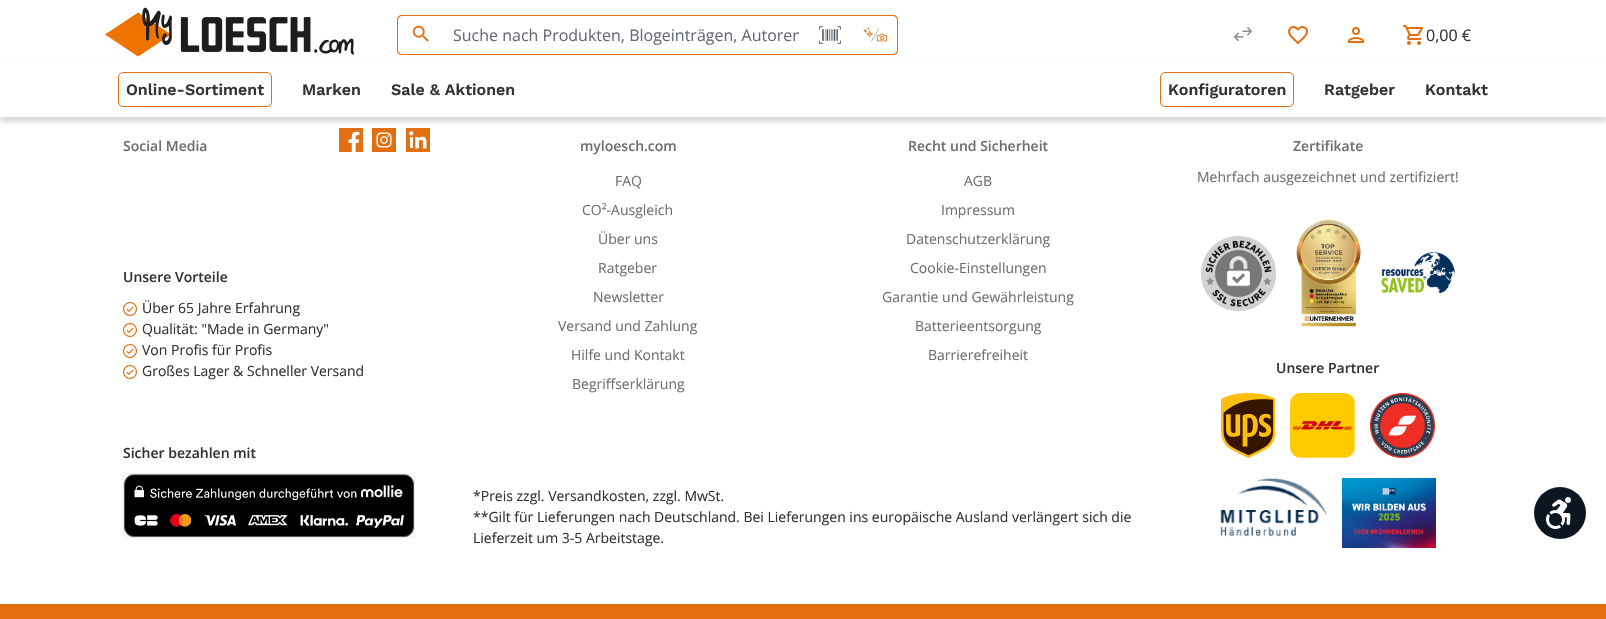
#include "include/core/SkBlurTypes.h"
#include "include/core/SkCanvas.h"
#include "include/core/SkData.h"
#include "include/core/SkFont.h"
#include "include/core/SkFontMgr.h"
#include "include/core/SkImage.h"
#include "include/core/SkMaskFilter.h"
#include "include/core/SkPaint.h"
#include "include/core/SkPathBuilder.h"
#include "include/core/SkTextBlob.h"
#include "include/effects/SkDashPathEffect.h"
#include "include/effects/SkGradientShader.h"
#include "include/utils/SkParsePath.h"

extern sk_sp<SkFontMgr> fontMgr;

void draw(SkCanvas* canvas) {
  SkPaint p;
  p.setAntiAlias(true);
  canvas->clear(SK_ColorWHITE);
  canvas->drawImageRect(SkImages::DeferredFromEncodedData(SkData::MakeFromFileName("images/9.png")), SkRect::MakeLTRB(339, 128, 363, 152), SkSamplingOptions());
  canvas->drawImageRect(SkImages::DeferredFromEncodedData(SkData::MakeFromFileName("images/10.png")), SkRect::MakeLTRB(372, 128, 396, 152), SkSamplingOptions());
  canvas->drawImageRect(SkImages::DeferredFromEncodedData(SkData::MakeFromFileName("images/11.png")), SkRect::MakeLTRB(406, 128, 430, 152), SkSamplingOptions());
  p.setColor(SkColorSetARGB(38, 0, 0, 0));
  p.setMaskFilter(SkMaskFilter::MakeBlur(kNormal_SkBlurStyle, 2.5f));
  canvas->drawRect(SkRect::MakeLTRB(0, 65, 1606, 122), p);
  p.setMaskFilter(nullptr);
  canvas->drawImageRect(SkImages::DeferredFromEncodedData(SkData::MakeFromFileName("images/1.png")), SkRect::MakeLTRB(105, 7, 355, 57), SkSamplingOptions());
  p.setColor(SkColorSetRGB(226, 112, 18));
  canvas->drawPath(SkPathBuilder(SkPathFillType::kEvenOdd).moveTo(402, 15).lineTo(444, 15).lineTo(444, 55).lineTo(402, 55).cubicTo(399, 55, 397, 53, 397, 50).lineTo(397, 20).cubicTo(397, 17, 399, 15, 402, 15).close().moveTo(402, 16).lineTo(444, 16).lineTo(444, 54).lineTo(402, 54).cubicTo(400, 54, 398, 52, 398, 50).lineTo(398, 20).cubicTo(398, 18, 400, 16, 402, 16).close().detach(), p);
  canvas->drawImageRect(SkImages::DeferredFromEncodedData(SkData::MakeFromFileName("images/2.png")), SkRect::MakeLTRB(412, 25, 429, 42), SkSamplingOptions());
  canvas->drawRect(SkRect::MakeLTRB(444, 15, 853, 16), p);
  canvas->drawRect(SkRect::MakeLTRB(444, 54, 853, 55), p);
  canvas->drawImageRect(SkImages::DeferredFromEncodedData(SkData::MakeFromFileName("images/3.png")), SkRect::MakeLTRB(819, 26, 841, 44), SkSamplingOptions());
  canvas->drawPath(SkPathBuilder(SkPathFillType::kEvenOdd).moveTo(853, 15).lineTo(893, 15).cubicTo(896, 15, 898, 17, 898, 20).lineTo(898, 50).cubicTo(898, 53, 896, 55, 893, 55).lineTo(853, 55).close().moveTo(853, 16).lineTo(893, 16).cubicTo(895, 16, 897, 18, 897, 20).lineTo(897, 50).cubicTo(897, 52, 895, 54, 893, 54).lineTo(853, 54).close().detach(), p);
  canvas->drawImageRect(SkImages::DeferredFromEncodedData(SkData::MakeFromFileName("images/4.png")), SkRect::MakeLTRB(863, 27, 887, 42), SkSamplingOptions());
  canvas->drawImageRect(SkImages::DeferredFromEncodedData(SkData::MakeFromFileName("images/5.png")), SkRect::MakeLTRB(1234, 27, 1252, 42), SkSamplingOptions());
  canvas->drawImageRect(SkImages::DeferredFromEncodedData(SkData::MakeFromFileName("images/6.png")), SkRect::MakeLTRB(1288, 26, 1308, 45), SkSamplingOptions());
  canvas->drawImageRect(SkImages::DeferredFromEncodedData(SkData::MakeFromFileName("images/7.png")), SkRect::MakeLTRB(1348, 27, 1364, 43), SkSamplingOptions());
  canvas->drawImageRect(SkImages::DeferredFromEncodedData(SkData::MakeFromFileName("images/8.png")), SkRect::MakeLTRB(1403, 25, 1423, 45), SkSamplingOptions());
  p.setColor(SK_ColorWHITE);
  canvas->drawRect(SkRect::MakeLTRB(0, 61, 1606, 117), p);
  p.setStyle(SkPaint::kStroke_Style);
  p.setStrokeWidth(1);
  p.setColor(SkColorSetRGB(226, 112, 18));
  canvas->drawRoundRect(SkRect::MakeLTRB(118.5f, 72.5f, 271.5f, 106.5f), 4.5f, 4.5f, p);
  canvas->drawRoundRect(SkRect::MakeLTRB(1160.5f, 72.5f, 1293.5f, 106.5f), 4.5f, 4.5f, p);
  canvas->drawImageRect(SkImages::DeferredFromEncodedData(SkData::MakeFromFileName("images/12.png")), SkRect::MakeLTRB(1201, 236, 1276, 311), SkSamplingOptions());
  canvas->drawImageRect(SkImages::DeferredFromEncodedData(SkData::MakeFromFileName("images/13.png")), SkRect::MakeLTRB(1296, 219, 1361, 327), SkSamplingOptions());
  canvas->drawImageRect(SkImages::DeferredFromEncodedData(SkData::MakeFromFileName("images/14.png")), SkRect::MakeLTRB(1381, 252, 1455, 294), SkSamplingOptions());
  canvas->drawImageRect(SkImages::DeferredFromEncodedData(SkData::MakeFromFileName("images/15.png")), SkRect::MakeLTRB(123, 302, 137, 316), SkSamplingOptions());
  canvas->drawImageRect(SkImages::DeferredFromEncodedData(SkData::MakeFromFileName("images/15.png")), SkRect::MakeLTRB(123, 323, 137, 337), SkSamplingOptions());
  canvas->drawImageRect(SkImages::DeferredFromEncodedData(SkData::MakeFromFileName("images/15.png")), SkRect::MakeLTRB(123, 344, 137, 358), SkSamplingOptions());
  canvas->drawImageRect(SkImages::DeferredFromEncodedData(SkData::MakeFromFileName("images/15.png")), SkRect::MakeLTRB(123, 365, 137, 379), SkSamplingOptions());
  canvas->drawImageRect(SkImages::DeferredFromEncodedData(SkData::MakeFromFileName("images/16.png")), SkRect::MakeLTRB(1221, 393, 1275, 458), SkSamplingOptions());
  canvas->drawImageRect(SkImages::DeferredFromEncodedData(SkData::MakeFromFileName("images/17.png")), SkRect::MakeLTRB(1290, 393, 1355, 458), SkSamplingOptions());
  canvas->drawImageRect(SkImages::DeferredFromEncodedData(SkData::MakeFromFileName("images/18.png")), SkRect::MakeLTRB(1370, 393, 1435, 458), SkSamplingOptions());
  canvas->drawImageRect(SkImages::DeferredFromEncodedData(SkData::MakeFromFileName("images/19.png")), SkRect::MakeLTRB(1220, 478, 1327, 537), SkSamplingOptions());
  canvas->drawImageRect(SkImages::DeferredFromEncodedData(SkData::MakeFromFileName("images/20.png")), SkRect::MakeLTRB(1342, 478, 1436, 548), SkSamplingOptions());
  p.setColor(SkColorSetRGB(238, 238, 238));
  canvas->drawRoundRect(SkRect::MakeLTRB(123.5f, 473.5f, 414.5f, 537.5f), 1.5f, 1.5f, p);
  canvas->drawImageRect(SkImages::DeferredFromEncodedData(SkData::MakeFromFileName("images/21.png")), SkRect::MakeLTRB(124, 474, 414, 537), SkSamplingOptions());
  p.setStyle(SkPaint::kFill_Style);
  p.setColor(SkColorSetRGB(226, 112, 18));
  canvas->drawRect(SkRect::MakeLTRB(0, 604, 1606, 619), p);
  p.setColor(SkColorSetRGB(12, 22, 32));
  canvas->drawCircle(1560, 513, 26, p);
  canvas->drawImageRect(SkImages::DeferredFromEncodedData(SkData::MakeFromFileName("images/22.png")), SkRect::MakeLTRB(1546, 497, 1571, 529), SkSamplingOptions());
  canvas->save();
  canvas->clipRect(SkRect::MakeLTRB(453, 24, 799, 46));
  SkFont font1(fontMgr->matchFamilyStyle("Open Sans", SkFontStyle::Normal()), 16);
  font1.setSubpixel(true);
  p.setColor(SkColorSetRGB(102, 105, 119));
  canvas->drawString("Suche nach Produkten, Blogeinträgen, Autoren", 453, 41, font1, p);
  canvas->restore();
  p.setColor(SkColorSetRGB(51, 51, 51));
  canvas->drawString("0,00 €", 1426, 41, font1, p);
  SkFont font2(fontMgr->matchFamilyStyle("Work Sans", SkFontStyle(600, SkFontStyle::kNormal_Width, SkFontStyle::kUpright_Slant)), 16);
  font2.setSubpixel(true);
  canvas->drawString("Online-Sortiment", 126, 95, font2, p);
  canvas->drawString("Marken", 302, 95, font2, p);
  canvas->drawString("Sale & Aktionen", 391, 95, font2, p);
  canvas->drawString("Konfiguratoren", 1168, 95, font2, p);
  canvas->drawString("Ratgeber", 1324, 95, font2, p);
  canvas->drawString("Kontakt", 1425, 95, font2, p);
  SkFont font3(fontMgr->matchFamilyStyle("Open Sans", SkFontStyle(600, SkFontStyle::kNormal_Width, SkFontStyle::kUpright_Slant)), 14);
  font3.setSubpixel(true);
  p.setColor(SkColorSetRGB(111, 111, 111));
  canvas->drawString("Social Media", 123, 151, font3, p);
  canvas->drawString("myloesch.com", 580, 151, font3, p);
  SkFont font4(fontMgr->matchFamilyStyle("Open Sans", SkFontStyle::Normal()), 14);
  font4.setSubpixel(true);
  canvas->drawString("FAQ", 615, 186, font4, p);
  canvas->drawString("CO²-Ausgleich", 582, 215, font4, p);
  canvas->drawString("Über uns", 598, 244, font4, p);
  canvas->drawString("Ratgeber", 598, 273, font4, p);
  canvas->drawString("Newsletter", 593, 302, font4, p);
  canvas->drawString("Versand und Zahlung", 558, 331, font4, p);
  canvas->drawString("Hilfe und Kontakt", 571, 360, font4, p);
  canvas->drawString("Begriffserklärung", 572, 389, font4, p);
  canvas->drawString("Recht und Sicherheit", 908, 151, font3, p);
  canvas->drawString("AGB", 964, 186, font4, p);
  canvas->drawString("Impressum", 941, 215, font4, p);
  canvas->drawString("Datenschutzerklärung", 906, 244, font4, p);
  canvas->drawString("Cookie-Einstellungen", 910, 273, font4, p);
  canvas->drawString("Garantie und Gewährleistung", 882, 302, font4, p);
  canvas->drawString("Batterieentsorgung", 915, 331, font4, p);
  canvas->drawString("Barrierefreiheit", 928, 360, font4, p);
  canvas->drawString("Zertifikate", 1293, 151, font3, p);
  canvas->drawString("Mehrfach ausgezeichnet und zertifiziert!", 1197, 182, font4, p);
  p.setColor(SkColorSetRGB(51, 51, 51));
  canvas->drawString("Unsere Vorteile", 123, 282, font3, p);
  canvas->drawString("Über 65 Jahre Erfahrung", 142, 313, font4, p);
  canvas->drawString("Qualität: \"Made in Germany\"", 142, 334, font4, p);
  canvas->drawString("Von Profis für Profis", 142, 355, font4, p);
  canvas->drawString("Großes Lager & Schneller Versand", 142, 376, font4, p);
  canvas->drawString("Unsere Partner", 1276, 373, font3, p);
  canvas->drawString("Sicher bezahlen mit", 123, 458, font3, p);
  canvas->drawString("*Preis zzgl. Versandkosten, zzgl. MwSt.", 473, 501, font4, p);
  canvas->drawString("**Gilt für Lieferungen nach Deutschland. Bei Lieferungen ins europäische Ausland verlängert sich die", 473, 522, font4, p);
  canvas->drawString("Lieferzeit um 3-5 Arbeitstage.", 473, 543, font4, p);
}
